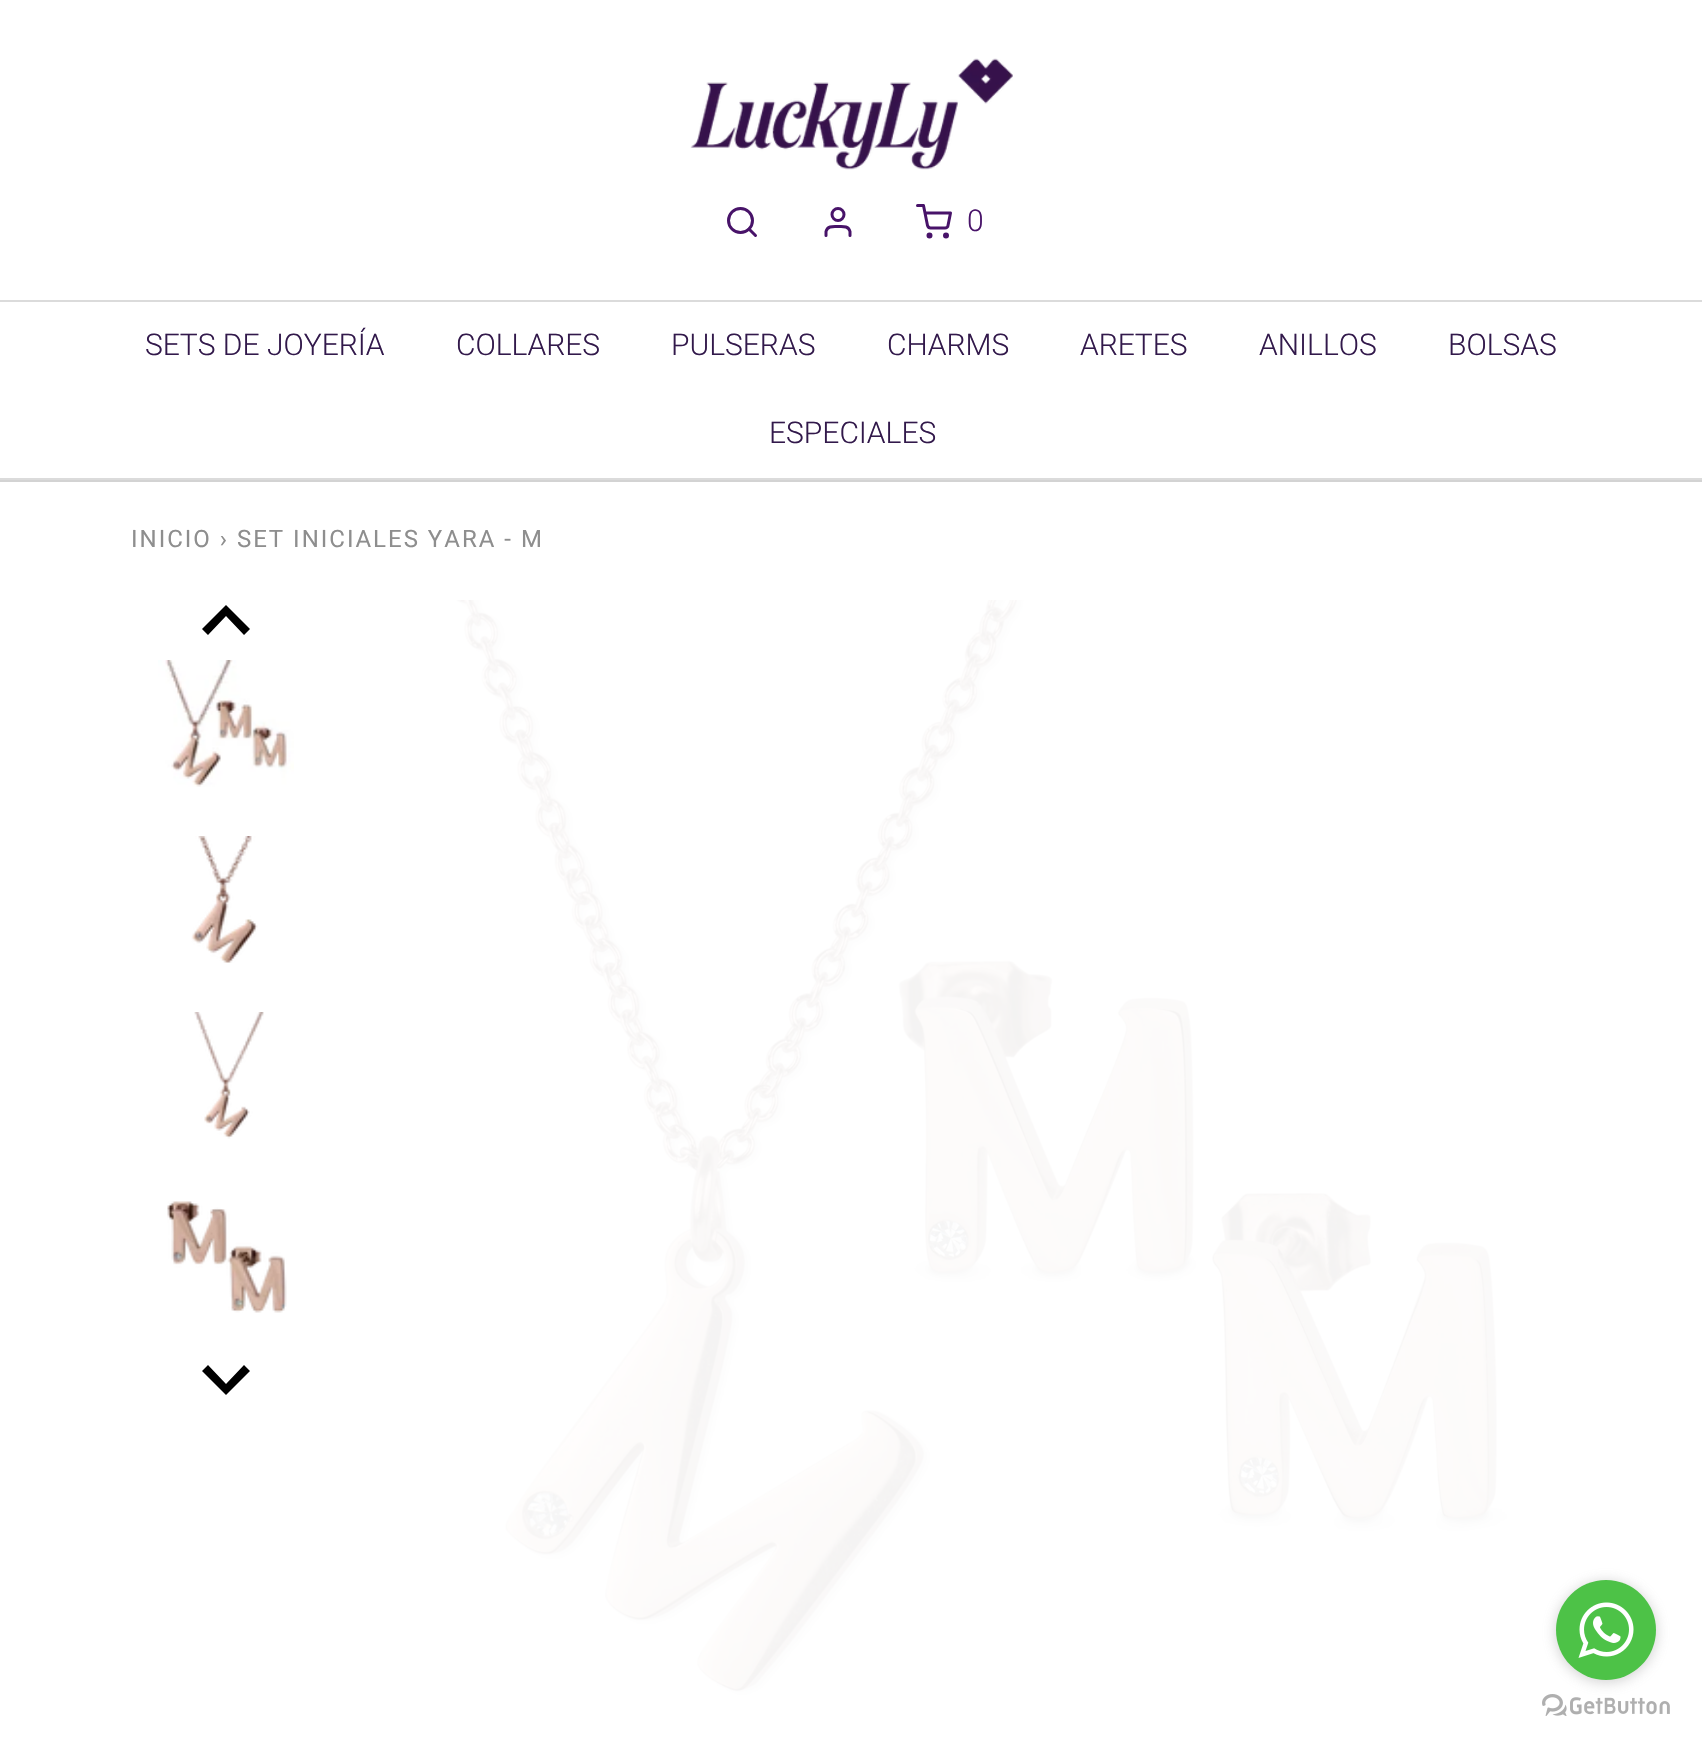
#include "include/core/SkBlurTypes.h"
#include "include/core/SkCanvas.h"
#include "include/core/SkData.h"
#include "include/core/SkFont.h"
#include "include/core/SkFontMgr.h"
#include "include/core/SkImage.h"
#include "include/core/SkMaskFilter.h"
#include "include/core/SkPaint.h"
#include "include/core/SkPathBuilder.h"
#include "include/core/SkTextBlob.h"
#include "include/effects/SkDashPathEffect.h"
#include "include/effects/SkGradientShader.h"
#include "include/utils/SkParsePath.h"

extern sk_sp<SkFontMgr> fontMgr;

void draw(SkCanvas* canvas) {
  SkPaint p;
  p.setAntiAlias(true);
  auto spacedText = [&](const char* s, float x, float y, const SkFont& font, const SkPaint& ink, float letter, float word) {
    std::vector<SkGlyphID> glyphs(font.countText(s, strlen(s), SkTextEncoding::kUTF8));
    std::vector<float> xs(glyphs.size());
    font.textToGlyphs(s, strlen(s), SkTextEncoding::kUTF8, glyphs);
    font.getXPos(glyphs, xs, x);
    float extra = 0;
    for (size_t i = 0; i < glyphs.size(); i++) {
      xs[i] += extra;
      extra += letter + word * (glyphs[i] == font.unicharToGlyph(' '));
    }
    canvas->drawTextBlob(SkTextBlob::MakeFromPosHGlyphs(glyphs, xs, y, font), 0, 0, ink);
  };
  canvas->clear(SK_ColorWHITE);
  p.setColor(SkColorSetRGB(211, 211, 211));
  canvas->drawRect(SkRect::MakeLTRB(0, 480, 1702, 482), p);
  canvas->drawImageRect(SkImages::DeferredFromEncodedData(SkData::MakeFromFileName("images/1.png")), SkRect::MakeLTRB(690, 58, 1013, 170), SkSamplingOptions());
  p.setStyle(SkPaint::kStroke_Style);
  p.setStrokeWidth(3);
  p.setColor(SkColorSetRGB(72, 19, 105));
  canvas->drawCircle(740.5f, 220.5f, 12, p);
  p.setStrokeCap(SkPaint::kRound_Cap);
  p.setStrokeJoin(SkPaint::kRound_Join);
  canvas->drawPath(SkPathBuilder().moveTo(755.5f, 235.5f).lineTo(749, 229).detach(), p);
  canvas->drawPath(SkPathBuilder().moveTo(850, 235.5f).lineTo(850, 231.5f).cubicTo(848.5f, 225.5f, 842.5f, 226.5f, 838, 226.5f).cubicTo(833.5f, 226.5f, 827.5f, 225.5f, 826, 231.5f).lineTo(826, 235.5f).detach(), p);
  p.setStrokeCap(SkPaint::kButt_Cap);
  p.setStrokeJoin(SkPaint::kMiter_Join);
  canvas->drawCircle(838, 214.5f, 6, p);
  canvas->drawCircle(929.5f, 235.5f, 1.5f, p);
  canvas->drawCircle(946, 235.5f, 1.5f, p);
  p.setStrokeCap(SkPaint::kRound_Cap);
  p.setStrokeJoin(SkPaint::kRound_Join);
  canvas->drawPath(SkPathBuilder().moveTo(917.5f, 205.5f).lineTo(923.5f, 205.5f).lineTo(927.5f, 225.5f).cubicTo(928, 227, 929, 228, 930.5f, 228).lineTo(945, 228).cubicTo(946.5f, 228, 948, 227, 948, 225.5f).lineTo(950.5f, 213).lineTo(925, 213).detach(), p);
  p.setStyle(SkPaint::kFill_Style);
  p.setColor(SkColorSetRGB(219, 219, 219));
  canvas->drawRect(SkRect::MakeLTRB(0, 300, 1702, 302), p);
  canvas->drawRect(SkRect::MakeLTRB(0, 478, 1702, 480), p);
  p.setColor(SK_ColorBLACK);
  canvas->drawPath(SkPathBuilder().moveTo(202, 629).lineTo(208, 635).lineTo(226, 616).lineTo(244, 635).lineTo(250, 629).lineTo(226, 605).close().detach(), p);
  canvas->drawPath(SkPathBuilder().moveTo(202, 1371).lineTo(208, 1365).lineTo(226, 1384).lineTo(244, 1365).lineTo(250, 1371).lineTo(226, 1395).close().detach(), p);
  canvas->drawImageRect(SkImages::DeferredFromEncodedData(SkData::MakeFromFileName("images/2.png")), SkRect::MakeLTRB(158, 660, 294, 787), SkSamplingOptions());
  canvas->drawImageRect(SkImages::DeferredFromEncodedData(SkData::MakeFromFileName("images/3.png")), SkRect::MakeLTRB(191, 836, 258, 963), SkSamplingOptions());
  canvas->drawImageRect(SkImages::DeferredFromEncodedData(SkData::MakeFromFileName("images/4.png")), SkRect::MakeLTRB(194, 1012, 264, 1139), SkSamplingOptions());
  canvas->drawImageRect(SkImages::DeferredFromEncodedData(SkData::MakeFromFileName("images/5.png")), SkRect::MakeLTRB(167, 1201, 287, 1313), SkSamplingOptions());
  canvas->drawImageRect(SkImages::DeferredFromEncodedData(SkData::MakeFromFileName("images/6.png")), SkRect::MakeLTRB(456, 600, 1510, 1697), SkSamplingOptions());
  canvas->drawImageRect(SkImages::DeferredFromEncodedData(SkData::MakeFromFileName("images/8.png")), SkRect::MakeLTRB(1542, 1694, 1670, 1716), SkSamplingOptions());
  p.setColor(SkColorSetARGB(102, 136, 136, 136));
  p.setMaskFilter(SkMaskFilter::MakeBlur(kNormal_SkBlurStyle, 7));
  canvas->drawRoundRect(SkRect::MakeLTRB(1556, 1582, 1656, 1682), 50, 50, p);
  p.setMaskFilter(nullptr);
  p.setColor(SkColorSetRGB(77, 194, 71));
  canvas->drawCircle(1606, 1630, 50, p);
  canvas->drawImageRect(SkImages::DeferredFromEncodedData(SkData::MakeFromFileName("images/7.png")), SkRect::MakeLTRB(1578, 1602, 1634, 1658), SkSamplingOptions());
  SkFont font1(fontMgr->matchFamilyStyle("Roboto", SkFontStyle(300, SkFontStyle::kNormal_Width, SkFontStyle::kUpright_Slant)), 30);
  font1.setSubpixel(true);
  p.setColor(SkColorSetRGB(72, 19, 105));
  canvas->drawString("0", 967, 231, font1, p);
  p.setColor(SkColorSetRGB(50, 25, 75));
  canvas->drawString("SETS DE JOYERÍA", 145, 355, font1, p);
  canvas->drawString("COLLARES", 456, 355, font1, p);
  canvas->drawString("PULSERAS", 671, 355, font1, p);
  canvas->drawString("CHARMS", 887, 355, font1, p);
  canvas->drawString("ARETES", 1080, 355, font1, p);
  canvas->drawString("ANILLOS", 1259, 355, font1, p);
  canvas->drawString("BOLSAS", 1448, 355, font1, p);
  canvas->drawString("ESPECIALES", 769, 443, font1, p);
  SkFont font2(fontMgr->matchFamilyStyle("Roboto", SkFontStyle::Normal()), 24);
  font2.setSubpixel(true);
  p.setColor(SkColorSetRGB(142, 142, 142));
  spacedText("INICIO › SET INICIALES YARA - M", 131, 547, font2, p, 2, 0);
}
